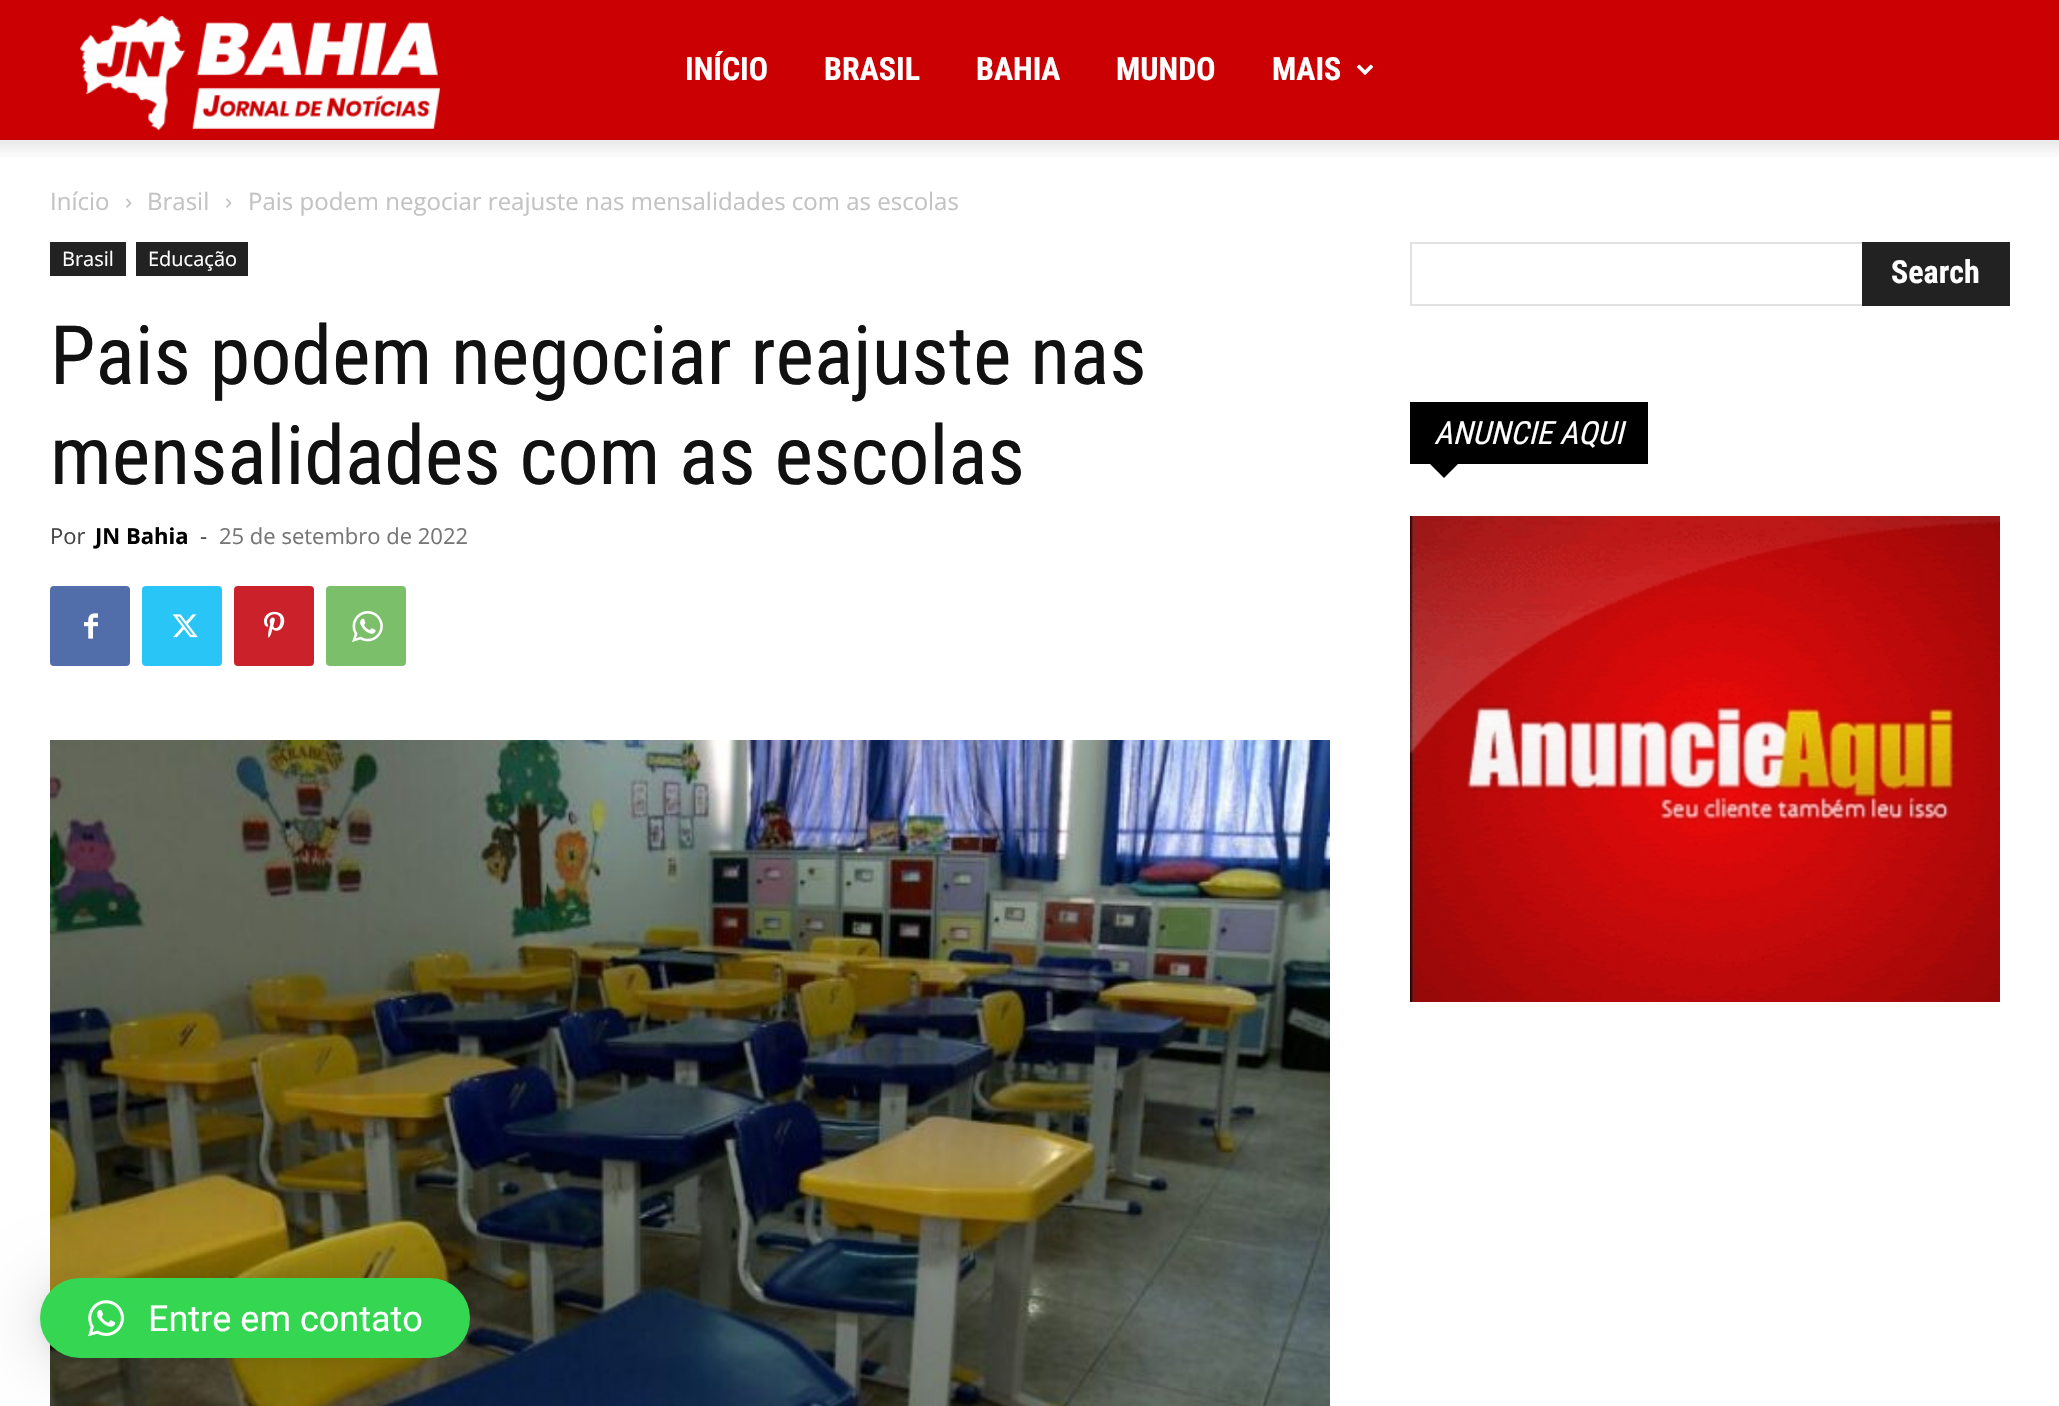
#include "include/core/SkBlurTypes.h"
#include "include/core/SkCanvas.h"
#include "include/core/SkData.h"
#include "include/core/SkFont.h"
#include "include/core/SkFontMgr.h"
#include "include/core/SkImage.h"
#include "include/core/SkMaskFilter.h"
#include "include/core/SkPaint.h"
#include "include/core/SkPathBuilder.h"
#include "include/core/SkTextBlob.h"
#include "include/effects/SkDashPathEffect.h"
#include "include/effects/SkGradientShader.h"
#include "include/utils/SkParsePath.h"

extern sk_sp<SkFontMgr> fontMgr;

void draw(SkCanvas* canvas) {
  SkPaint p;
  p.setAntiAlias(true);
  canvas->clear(SK_ColorWHITE);
  p.setColor(SkColorSetRGB(203, 0, 3));
  canvas->drawRect(SkRect::MakeLTRB(0, 0, 2059, 140), p);
  canvas->drawImageRect(SkImages::DeferredFromEncodedData(SkData::MakeFromFileName("images/1.png")), SkRect::MakeLTRB(80, 16, 440, 130), SkSamplingOptions());
  canvas->drawImageRect(SkImages::DeferredFromEncodedData(SkData::MakeFromFileName("images/2.png")), SkRect::MakeLTRB(1357, 64, 1373, 75), SkSamplingOptions());
  canvas->drawImageRect(SkImages::DeferredFromEncodedData(SkData::MakeFromFileName("images/3.png")), SkRect::MakeLTRB(0, 140, 2059, 157), SkSamplingOptions());
  canvas->drawImageRect(SkImages::DeferredFromEncodedData(SkData::MakeFromFileName("images/4.png")), SkRect::MakeLTRB(126, 198, 132, 208), SkSamplingOptions());
  canvas->drawImageRect(SkImages::DeferredFromEncodedData(SkData::MakeFromFileName("images/4.png")), SkRect::MakeLTRB(226, 198, 232, 208), SkSamplingOptions());
  p.setColor(SkColorSetRGB(34, 34, 34));
  canvas->drawRect(SkRect::MakeLTRB(50, 242, 126, 276), p);
  canvas->drawRect(SkRect::MakeLTRB(136, 242, 248, 276), p);
  p.setColor(SkColorSetRGB(81, 110, 171));
  canvas->drawRoundRect(SkRect::MakeLTRB(50, 586, 130, 666), 4, 4, p);
  canvas->drawImageRect(SkImages::DeferredFromEncodedData(SkData::MakeFromFileName("images/5.png")), SkRect::MakeLTRB(84, 613, 98, 639), SkSamplingOptions());
  p.setColor(SkColorSetRGB(41, 197, 246));
  canvas->drawRoundRect(SkRect::MakeLTRB(142, 586, 222, 666), 4, 4, p);
  canvas->drawImageRect(SkImages::DeferredFromEncodedData(SkData::MakeFromFileName("images/6.png")), SkRect::MakeLTRB(172, 614, 198, 638), SkSamplingOptions());
  p.setColor(SkColorSetRGB(202, 33, 42));
  canvas->drawRoundRect(SkRect::MakeLTRB(234, 586, 314, 666), 4, 4, p);
  canvas->drawImageRect(SkImages::DeferredFromEncodedData(SkData::MakeFromFileName("images/7.png")), SkRect::MakeLTRB(264, 611, 285, 638), SkSamplingOptions());
  p.setColor(SkColorSetRGB(123, 191, 106));
  canvas->drawRoundRect(SkRect::MakeLTRB(326, 586, 406, 666), 4, 4, p);
  canvas->drawImageRect(SkImages::DeferredFromEncodedData(SkData::MakeFromFileName("images/8.png")), SkRect::MakeLTRB(352, 611, 383, 642), SkSamplingOptions());
  canvas->drawImageRect(SkImages::DeferredFromEncodedData(SkData::MakeFromFileName("images/9.png")), SkRect::MakeLTRB(50, 740, 1330, 1406), SkSamplingOptions());
  p.setColor(SkColorSetRGB(225, 225, 225));
  canvas->drawRect(SkRect::MakeLTRB(1410, 242, 1862, 244), p);
  canvas->drawRect(SkRect::MakeLTRB(1410, 304, 1862, 306), p);
  canvas->drawRect(SkRect::MakeLTRB(1410, 242, 1412, 306), p);
  p.setColor(SkColorSetRGB(34, 34, 34));
  canvas->drawRect(SkRect::MakeLTRB(1862, 242, 2010, 306), p);
  p.setColor(SK_ColorBLACK);
  canvas->drawRect(SkRect::MakeLTRB(1410, 402, 1648, 464), p);
  canvas->drawPath(SkPathBuilder().moveTo(1430, 464).lineTo(1458, 464).lineTo(1444, 478).close().detach(), p);
  canvas->drawImageRect(SkImages::DeferredFromEncodedData(SkData::MakeFromFileName("images/10.png")), SkRect::MakeLTRB(1410, 516, 2000, 1002), SkSamplingOptions());
  p.setColor(SkColorSetARGB(41, 0, 0, 0));
  p.setMaskFilter(SkMaskFilter::MakeBlur(kNormal_SkBlurStyle, 32));
  canvas->drawRoundRect(SkRect::MakeLTRB(40, 1282, 470, 1362), 40, 40, p);
  p.setMaskFilter(nullptr);
  p.setColor(SkColorSetARGB(15, 0, 0, 0));
  p.setMaskFilter(SkMaskFilter::MakeBlur(kNormal_SkBlurStyle, 6));
  canvas->drawRoundRect(SkRect::MakeLTRB(40, 1280, 470, 1360), 40, 40, p);
  p.setMaskFilter(nullptr);
  p.setColor(SkColorSetRGB(53, 214, 82));
  canvas->drawRoundRect(SkRect::MakeLTRB(40, 1278, 470, 1358), 40, 40, p);
  canvas->drawImageRect(SkImages::DeferredFromEncodedData(SkData::MakeFromFileName("images/11.png")), SkRect::MakeLTRB(88, 1300, 124, 1337), SkSamplingOptions());
  SkFont font1(fontMgr->matchFamilyStyle("Roboto Condensed", SkFontStyle::Bold()), 32);
  font1.setSubpixel(true);
  p.setColor(SK_ColorWHITE);
  canvas->drawString("INÍCIO", 685, 80, font1, p);
  canvas->drawString("BRASIL", 824, 80, font1, p);
  canvas->drawString("BAHIA", 976, 80, font1, p);
  canvas->drawString("MUNDO", 1116, 80, font1, p);
  canvas->drawString("MAIS", 1272, 80, font1, p);
  SkFont font2(fontMgr->matchFamilyStyle("Open Sans", SkFontStyle::Normal()), 24);
  font2.setSubpixel(true);
  p.setColor(SkColorSetRGB(195, 195, 195));
  canvas->drawString("Início", 50, 210, font2, p);
  canvas->drawString("Brasil", 147, 210, font2, p);
  canvas->drawString("Pais podem negociar reajuste nas mensalidades com as escolas", 248, 210, font2, p);
  SkFont font3(fontMgr->matchFamilyStyle("Open Sans", SkFontStyle::Normal()), 20);
  font3.setSubpixel(true);
  p.setColor(SK_ColorWHITE);
  canvas->drawString("Brasil", 62, 266, font3, p);
  canvas->drawString("Educação", 148, 266, font3, p);
  SkFont font4(fontMgr->matchFamilyStyle("Roboto Condensed", SkFontStyle::Normal()), 82);
  font4.setSubpixel(true);
  p.setColor(SkColorSetRGB(17, 17, 17));
  canvas->drawString("Pais podem negociar reajuste nas", 50, 384, font4, p);
  canvas->drawString("mensalidades com as escolas", 50, 484, font4, p);
  SkFont font5(fontMgr->matchFamilyStyle("Open Sans", SkFontStyle::Normal()), 22);
  font5.setSubpixel(true);
  p.setColor(SkColorSetRGB(68, 68, 68));
  canvas->drawString("Por", 50, 544, font5, p);
  SkFont font6(fontMgr->matchFamilyStyle("Open Sans", SkFontStyle::Bold()), 22);
  font6.setSubpixel(true);
  p.setColor(SK_ColorBLACK);
  canvas->drawString("JN Bahia", 95, 544, font6, p);
  p.setColor(SkColorSetRGB(68, 68, 68));
  canvas->drawString("-", 200, 544, font5, p);
  p.setColor(SkColorSetRGB(118, 118, 118));
  canvas->drawString("25 de setembro de 2022", 219, 544, font5, p);
  p.setColor(SK_ColorWHITE);
  canvas->drawString("Search", 1891, 283, font1, p);
  SkFont font7(fontMgr->matchFamilyStyle("Roboto Condensed", SkFontStyle::Italic()), 32);
  font7.setSubpixel(true);
  canvas->drawString("ANUNCIE AQUI", 1434, 444, font7, p);
  SkFont font8(fontMgr->matchFamilyStyle("Roboto", SkFontStyle::Normal()), 36);
  font8.setSubpixel(true);
  canvas->drawString("Entre em contato", 148, 1331, font8, p);
}
